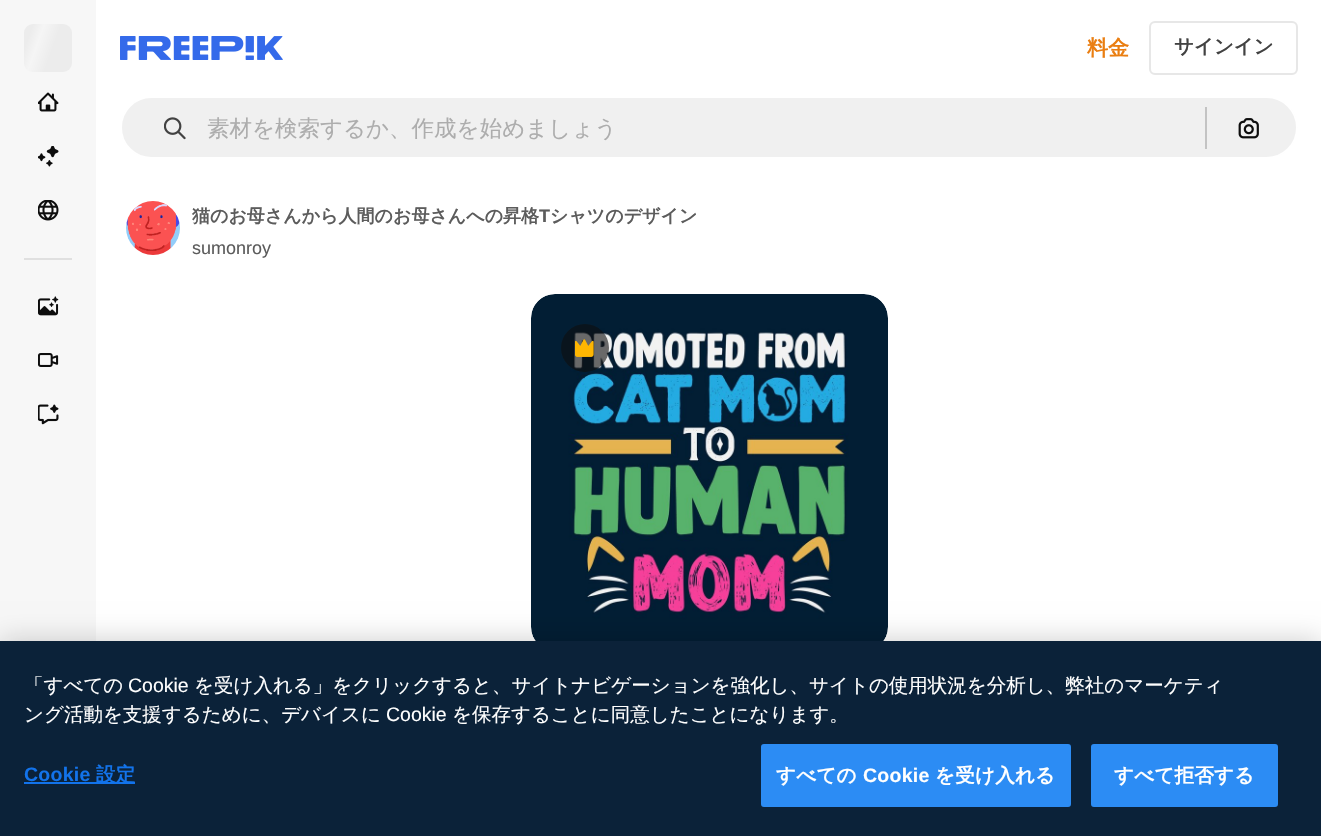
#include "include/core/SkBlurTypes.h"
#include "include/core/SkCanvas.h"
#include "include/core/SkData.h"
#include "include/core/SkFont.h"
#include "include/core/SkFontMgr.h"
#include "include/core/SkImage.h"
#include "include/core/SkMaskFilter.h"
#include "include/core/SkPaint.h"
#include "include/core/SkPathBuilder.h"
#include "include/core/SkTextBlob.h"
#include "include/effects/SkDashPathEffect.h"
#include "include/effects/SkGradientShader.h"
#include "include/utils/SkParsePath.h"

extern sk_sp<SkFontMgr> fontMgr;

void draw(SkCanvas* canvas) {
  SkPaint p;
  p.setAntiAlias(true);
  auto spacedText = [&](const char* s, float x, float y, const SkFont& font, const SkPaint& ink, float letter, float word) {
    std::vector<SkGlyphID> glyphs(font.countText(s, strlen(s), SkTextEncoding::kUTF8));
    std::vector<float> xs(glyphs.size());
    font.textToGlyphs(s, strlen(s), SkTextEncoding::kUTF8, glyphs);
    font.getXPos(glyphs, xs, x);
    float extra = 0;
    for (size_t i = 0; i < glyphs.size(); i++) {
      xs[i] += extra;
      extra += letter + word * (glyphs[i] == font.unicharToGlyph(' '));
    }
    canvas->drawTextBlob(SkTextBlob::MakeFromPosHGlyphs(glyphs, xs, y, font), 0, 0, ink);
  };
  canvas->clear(SK_ColorWHITE);
  p.setColor(SkColorSetRGB(247, 247, 247));
  canvas->drawRect(SkRect::MakeLTRB(0, 0, 96, 641), p);
  {
    const SkColor colors[] = {SkColorSetRGB(236, 236, 236), SkColorSetRGB(245, 245, 245), SkColorSetRGB(236, 236, 236)};
    const float stops[] = {0.08f, 0.18f, 0.33f};
    const SkPoint ends[] = {{22, 30}, {122, 66}};
    p.setShader(SkGradientShader::MakeLinear(ends, colors, stops, 3, SkTileMode::kClamp));
    p.setAlpha(255);
  }
  canvas->drawRoundRect(SkRect::MakeLTRB(24, 24, 72, 72), 9, 9, p);
  canvas->drawImageRect(SkImages::DeferredFromEncodedData(SkData::MakeFromFileName("images/1.png")), SkRect::MakeLTRB(38, 92, 59, 112), SkSamplingOptions());
  canvas->drawImageRect(SkImages::DeferredFromEncodedData(SkData::MakeFromFileName("images/2.png")), SkRect::MakeLTRB(38, 146, 59, 167), SkSamplingOptions());
  canvas->drawImageRect(SkImages::DeferredFromEncodedData(SkData::MakeFromFileName("images/3.png")), SkRect::MakeLTRB(38, 200, 59, 221), SkSamplingOptions());
  p.setShader(nullptr);
  p.setColor(SkColorSetRGB(224, 224, 224));
  canvas->drawRect(SkRect::MakeLTRB(24, 258, 72, 260), p);
  canvas->drawImageRect(SkImages::DeferredFromEncodedData(SkData::MakeFromFileName("images/4.png")), SkRect::MakeLTRB(38, 296, 59, 316), SkSamplingOptions());
  canvas->drawImageRect(SkImages::DeferredFromEncodedData(SkData::MakeFromFileName("images/5.png")), SkRect::MakeLTRB(38, 353, 59, 367), SkSamplingOptions());
  canvas->drawImageRect(SkImages::DeferredFromEncodedData(SkData::MakeFromFileName("images/6.png")), SkRect::MakeLTRB(38, 404, 59, 425), SkSamplingOptions());
  canvas->drawImageRect(SkImages::DeferredFromEncodedData(SkData::MakeFromFileName("images/7.png")), SkRect::MakeLTRB(120, 36, 283, 60), SkSamplingOptions());
  p.setStyle(SkPaint::kStroke_Style);
  p.setStrokeWidth(2);
  p.setColor(SkColorSetRGB(231, 231, 231));
  canvas->drawRoundRect(SkRect::MakeLTRB(1150, 22, 1297, 74), 5, 5, p);
  p.setStyle(SkPaint::kFill_Style);
  p.setColor(SkColorSetRGB(240, 240, 240));
  canvas->drawRoundRect(SkRect::MakeLTRB(121, 97, 1297, 158), 30.5f, 30.5f, p);
  p.setStyle(SkPaint::kStroke_Style);
  p.setColor(SK_ColorWHITE);
  canvas->drawRoundRect(SkRect::MakeLTRB(121, 97, 1297, 158), 30.5f, 30.5f, p);
  canvas->drawImageRect(SkImages::DeferredFromEncodedData(SkData::MakeFromFileName("images/8.png")), SkRect::MakeLTRB(164, 117, 186, 140), SkSamplingOptions());
  p.setStyle(SkPaint::kFill_Style);
  p.setColor(SkColorSetRGB(195, 195, 195));
  canvas->drawRect(SkRect::MakeLTRB(1205, 107, 1207, 149), p);
  canvas->drawImageRect(SkImages::DeferredFromEncodedData(SkData::MakeFromFileName("images/9.png")), SkRect::MakeLTRB(1238, 118, 1259, 139), SkSamplingOptions());
  canvas->drawImageRect(SkImages::DeferredFromEncodedData(SkData::MakeFromFileName("images/10.png")), SkRect::MakeLTRB(126, 201, 180, 255), SkSamplingOptions());
  canvas->drawImageRect(SkImages::DeferredFromEncodedData(SkData::MakeFromFileName("images/11.png")), SkRect::MakeLTRB(531, 294, 888, 641), SkSamplingOptions());
  p.setColor(SkColorSetARGB(153, 13, 13, 13));
  canvas->drawCircle(585, 348, 24, p);
  canvas->drawImageRect(SkImages::DeferredFromEncodedData(SkData::MakeFromFileName("images/12.png")), SkRect::MakeLTRB(575, 339, 594, 357), SkSamplingOptions());
  p.setColor(SkColorSetARGB(51, 0, 0, 0));
  p.setMaskFilter(SkMaskFilter::MakeBlur(kNormal_SkBlurStyle, 13.5f));
  canvas->drawRect(SkRect::MakeLTRB(0, 641, 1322, 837), p);
  p.setMaskFilter(nullptr);
  p.setColor(SkColorSetRGB(11, 34, 57));
  canvas->drawRect(SkRect::MakeLTRB(0, 641, 1321, 836), p);
  p.setColor(SkColorSetRGB(18, 115, 235));
  canvas->drawRect(SkRect::MakeLTRB(24, 782, 135, 784), p);
  p.setColor(SkColorSetRGB(44, 140, 244));
  canvas->drawRoundRect(SkRect::MakeLTRB(762, 745, 1070, 806), 2, 2, p);
  p.setStyle(SkPaint::kStroke_Style);
  canvas->drawRoundRect(SkRect::MakeLTRB(762, 745, 1070, 806), 2, 2, p);
  p.setStyle(SkPaint::kFill_Style);
  canvas->drawRoundRect(SkRect::MakeLTRB(1092, 745, 1277, 806), 2, 2, p);
  p.setStyle(SkPaint::kStroke_Style);
  canvas->drawRoundRect(SkRect::MakeLTRB(1092, 745, 1277, 806), 2, 2, p);
  SkFont font1(fontMgr->matchFamilyStyle("WenQuanYi Zen Hei", SkFontStyle::Bold()), 21);
  font1.setSubpixel(true);
  p.setStyle(SkPaint::kFill_Style);
  p.setColor(SkColorSetRGB(234, 126, 17));
  canvas->drawString("料金", 1087, 55, font1, p);
  SkFont font2(fontMgr->matchFamilyStyle("WenQuanYi Zen Hei", SkFontStyle::Bold()), 19.5f);
  font2.setSubpixel(true);
  p.setColor(SkColorSetRGB(66, 66, 66));
  canvas->drawString("サインイン", 1174, 53, font2, p);
  SkFont font3(fontMgr->matchFamilyStyle("WenQuanYi Zen Hei", SkFontStyle(500, SkFontStyle::kNormal_Width, SkFontStyle::kUpright_Slant)), 22.5f);
  font3.setSubpixel(true);
  p.setColor(SkColorSetRGB(173, 173, 173));
  canvas->drawString("素材を検索するか、作成を始めましょう", 207, 136, font3, p);
  SkFont font4(fontMgr->matchFamilyStyle("WenQuanYi Zen Hei", SkFontStyle::Bold()), 18);
  font4.setSubpixel(true);
  p.setColor(SkColorSetRGB(92, 92, 92));
  canvas->drawString("猫のお母さんから人間のお母さんへの昇格", 192, 222, font4, p);
  SkFont font5(fontMgr->matchFamilyStyle("Liberation Sans", SkFontStyle::Bold()), 18);
  font5.setSubpixel(true);
  canvas->drawString("T", 539, 222, font5, p);
  canvas->drawString("シャツのデザイン", 550, 222, font4, p);
  SkFont font6(fontMgr->matchFamilyStyle("Liberation Sans", SkFontStyle::Normal()), 18);
  font6.setSubpixel(true);
  canvas->drawString("sumonroy", 192, 254, font6, p);
  SkFont font7(fontMgr->matchFamilyStyle("WenQuanYi Zen Hei", SkFontStyle(500, SkFontStyle::kNormal_Width, SkFontStyle::kUpright_Slant)), 19.5f);
  font7.setSubpixel(true);
  p.setColor(SK_ColorWHITE);
  canvas->drawString("「すべての", 24, 692, font7, p);
  SkFont font8(fontMgr->matchFamilyStyle("Liberation Sans", SkFontStyle::Normal()), 19.5f);
  font8.setSubpixel(true);
  canvas->drawString("Cookie", 128, 692, font8, p);
  canvas->drawString("を受け入れる」をクリックすると、サイトナビゲーションを強化し、サイトの使用状況を分析し、弊社のマーケティ", 194, 692, font7, p);
  canvas->drawString("ング活動を支援するために、デバイスに", 24, 721, font7, p);
  canvas->drawString("Cookie", 386, 721, font8, p);
  canvas->drawString("を保存することに同意したことになります。", 452, 721, font7, p);
  SkFont font9(fontMgr->matchFamilyStyle("Liberation Sans", SkFontStyle::Bold()), 19.5f);
  font9.setSubpixel(true);
  p.setColor(SkColorSetRGB(18, 115, 235));
  spacedText("Cookie", 24, 781, font9, p, 0.25f, 0);
  spacedText("設定", 96, 781, font2, p, 0.25f, 0);
  p.setColor(SK_ColorWHITE);
  spacedText("すべての", 776, 782, font2, p, 0.25f, 0);
  spacedText("Cookie", 863, 782, font9, p, 0.25f, 0);
  spacedText("を受け入れる", 935, 782, font2, p, 0.25f, 0);
  spacedText("すべて拒否する", 1114, 782, font2, p, 0.25f, 0);
}
